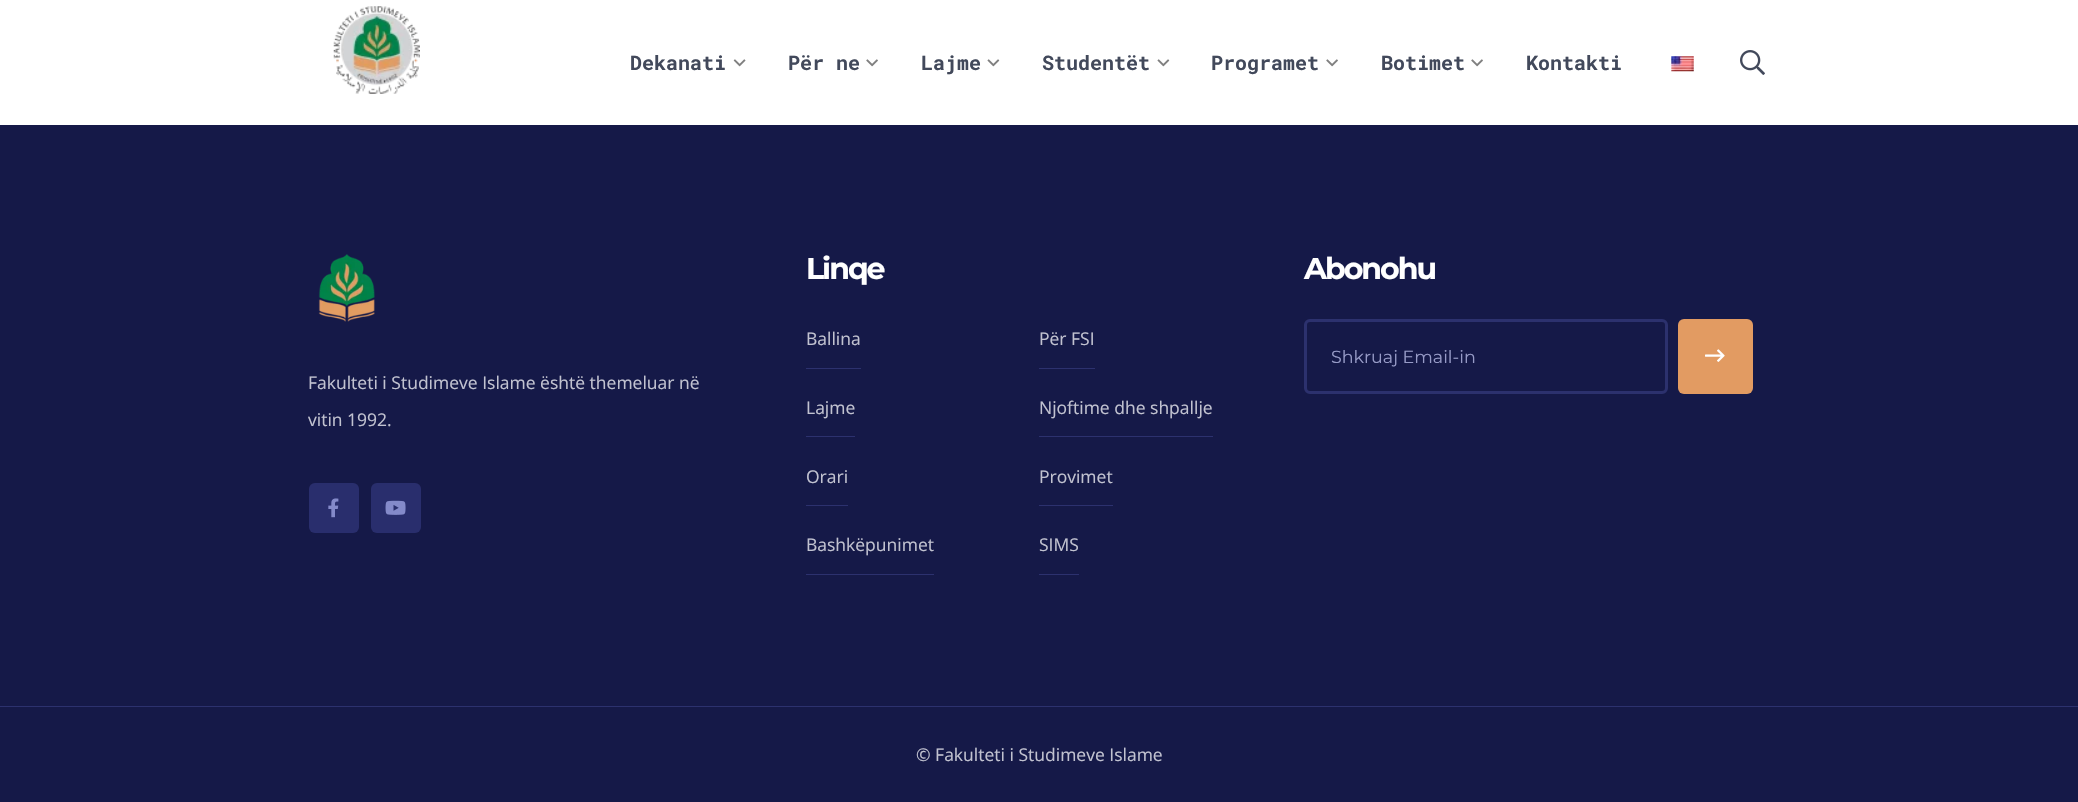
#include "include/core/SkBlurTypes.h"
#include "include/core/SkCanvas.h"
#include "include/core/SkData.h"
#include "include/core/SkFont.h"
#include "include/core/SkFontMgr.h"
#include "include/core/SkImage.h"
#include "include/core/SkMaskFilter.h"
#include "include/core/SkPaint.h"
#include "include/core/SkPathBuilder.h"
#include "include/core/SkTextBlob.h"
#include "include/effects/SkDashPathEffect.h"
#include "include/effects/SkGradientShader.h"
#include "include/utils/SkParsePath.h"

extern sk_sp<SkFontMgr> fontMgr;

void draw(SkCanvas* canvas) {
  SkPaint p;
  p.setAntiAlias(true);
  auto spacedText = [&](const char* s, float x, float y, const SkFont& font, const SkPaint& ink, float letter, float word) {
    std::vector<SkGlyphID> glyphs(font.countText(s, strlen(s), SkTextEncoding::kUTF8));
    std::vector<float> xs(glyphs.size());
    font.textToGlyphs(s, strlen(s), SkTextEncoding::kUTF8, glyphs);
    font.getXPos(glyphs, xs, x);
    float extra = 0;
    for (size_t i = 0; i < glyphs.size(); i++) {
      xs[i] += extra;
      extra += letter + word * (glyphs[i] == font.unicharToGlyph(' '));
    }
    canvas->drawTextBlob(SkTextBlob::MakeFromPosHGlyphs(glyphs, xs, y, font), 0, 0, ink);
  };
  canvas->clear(SK_ColorWHITE);
  canvas->drawImageRect(SkImages::DeferredFromEncodedData(SkData::MakeFromFileName("images/1.png")), SkRect::MakeLTRB(333, 6, 420, 94), SkSamplingOptions());
  canvas->drawImageRect(SkImages::DeferredFromEncodedData(SkData::MakeFromFileName("images/2.png")), SkRect::MakeLTRB(733, 59, 746, 67), SkSamplingOptions());
  canvas->drawImageRect(SkImages::DeferredFromEncodedData(SkData::MakeFromFileName("images/3.png")), SkRect::MakeLTRB(866, 59, 878, 67), SkSamplingOptions());
  canvas->drawImageRect(SkImages::DeferredFromEncodedData(SkData::MakeFromFileName("images/4.png")), SkRect::MakeLTRB(987, 59, 1000, 67), SkSamplingOptions());
  canvas->drawImageRect(SkImages::DeferredFromEncodedData(SkData::MakeFromFileName("images/4.png")), SkRect::MakeLTRB(1157, 59, 1170, 67), SkSamplingOptions());
  canvas->drawImageRect(SkImages::DeferredFromEncodedData(SkData::MakeFromFileName("images/3.png")), SkRect::MakeLTRB(1326, 59, 1338, 67), SkSamplingOptions());
  canvas->drawImageRect(SkImages::DeferredFromEncodedData(SkData::MakeFromFileName("images/3.png")), SkRect::MakeLTRB(1471, 59, 1483, 67), SkSamplingOptions());
  canvas->drawImageRect(SkImages::DeferredFromEncodedData(SkData::MakeFromFileName("images/5.png")), SkRect::MakeLTRB(1671, 56, 1694, 72), SkSamplingOptions());
  canvas->drawImageRect(SkImages::DeferredFromEncodedData(SkData::MakeFromFileName("images/6.png")), SkRect::MakeLTRB(1740, 50, 1765, 75), SkSamplingOptions());
  p.setColor(SkColorSetRGB(21, 25, 72));
  canvas->drawRect(SkRect::MakeLTRB(0, 125, 2078, 706), p);
  p.setColor(SkColorSetRGB(44, 49, 110));
  canvas->drawRect(SkRect::MakeLTRB(806, 368, 861, 369), p);
  canvas->drawRect(SkRect::MakeLTRB(1039, 368, 1095, 369), p);
  canvas->drawRect(SkRect::MakeLTRB(806, 436, 855, 437), p);
  canvas->drawRect(SkRect::MakeLTRB(1039, 436, 1213, 437), p);
  canvas->drawRect(SkRect::MakeLTRB(806, 505, 848, 506), p);
  canvas->drawRect(SkRect::MakeLTRB(1039, 505, 1113, 506), p);
  canvas->drawRect(SkRect::MakeLTRB(806, 574, 934, 575), p);
  canvas->drawRect(SkRect::MakeLTRB(1039, 574, 1079, 575), p);
  p.setStyle(SkPaint::kStroke_Style);
  p.setStrokeWidth(3);
  canvas->drawRoundRect(SkRect::MakeLTRB(1305.5f, 320.5f, 1666.5f, 392.5f), 4.5f, 4.5f, p);
  p.setStyle(SkPaint::kFill_Style);
  p.setColor(SkColorSetRGB(226, 155, 98));
  canvas->drawRoundRect(SkRect::MakeLTRB(1678, 319, 1753, 394), 6, 6, p);
  canvas->drawImageRect(SkImages::DeferredFromEncodedData(SkData::MakeFromFileName("images/7.png")), SkRect::MakeLTRB(1705, 349, 1725, 362), SkSamplingOptions());
  canvas->drawImageRect(SkImages::DeferredFromEncodedData(SkData::MakeFromFileName("images/8.png")), SkRect::MakeLTRB(318, 254, 375, 322), SkSamplingOptions());
  p.setColor(SkColorSetRGB(41, 46, 109));
  canvas->drawRoundRect(SkRect::MakeLTRB(309, 483, 359, 533), 6, 6, p);
  canvas->drawImageRect(SkImages::DeferredFromEncodedData(SkData::MakeFromFileName("images/9.png")), SkRect::MakeLTRB(328, 498, 339, 518), SkSamplingOptions());
  canvas->drawRoundRect(SkRect::MakeLTRB(371, 483, 421, 533), 6, 6, p);
  canvas->drawImageRect(SkImages::DeferredFromEncodedData(SkData::MakeFromFileName("images/10.png")), SkRect::MakeLTRB(385, 500, 406, 515), SkSamplingOptions());
  p.setColor(SkColorSetRGB(21, 25, 72));
  canvas->drawRect(SkRect::MakeLTRB(0, 707, 2078, 802), p);
  p.setColor(SkColorSetRGB(44, 49, 110));
  canvas->drawRect(SkRect::MakeLTRB(0, 706, 2078, 707), p);
  SkFont font1(fontMgr->matchFamilyStyle("Roboto Mono", SkFontStyle::Bold()), 20);
  font1.setSubpixel(true);
  p.setColor(SkColorSetRGB(66, 73, 91));
  canvas->drawString("Dekanati", 630, 70, font1, p);
  canvas->drawString("Për ne", 788, 70, font1, p);
  canvas->drawString("Lajme", 921, 70, font1, p);
  canvas->drawString("Studentët", 1042, 70, font1, p);
  canvas->drawString("Programet", 1211, 70, font1, p);
  canvas->drawString("Botimet", 1381, 70, font1, p);
  canvas->drawString("Kontakti", 1526, 70, font1, p);
  SkFont font2(fontMgr->matchFamilyStyle("Montserrat", SkFontStyle::Bold()), 30);
  font2.setSubpixel(true);
  p.setColor(SK_ColorWHITE);
  spacedText("Linqe", 806, 279, font2, p, -2, 0);
  SkFont font3(fontMgr->matchFamilyStyle("Open Sans", SkFontStyle::Normal()), 17.5f);
  font3.setSubpixel(true);
  p.setColor(SkColorSetRGB(193, 194, 208));
  canvas->drawString("Ballina", 806, 345, font3, p);
  canvas->drawString("Për FSI", 1039, 345, font3, p);
  canvas->drawString("Lajme", 806, 414, font3, p);
  canvas->drawString("Njoftime dhe shpallje", 1039, 414, font3, p);
  canvas->drawString("Orari", 806, 483, font3, p);
  canvas->drawString("Provimet", 1039, 483, font3, p);
  canvas->drawString("Bashkëpunimet", 806, 551, font3, p);
  canvas->drawString("SIMS", 1039, 551, font3, p);
  p.setColor(SK_ColorWHITE);
  spacedText("Abonohu", 1304, 279, font2, p, -2, 0);
  SkFont font4(fontMgr->matchFamilyStyle("Montserrat", SkFontStyle::Normal()), 17.5f);
  font4.setSubpixel(true);
  p.setColor(SkColorSetRGB(151, 155, 199));
  canvas->drawString("Shkruaj Email-in", 1331, 363, font4, p);
  p.setColor(SkColorSetRGB(193, 194, 208));
  canvas->drawString("Fakulteti i Studimeve Islame është themeluar në", 308, 389, font3, p);
  canvas->drawString("vitin 1992.", 308, 426, font3, p);
  canvas->drawString("© Fakulteti i Studimeve Islame", 916, 761, font3, p);
}
